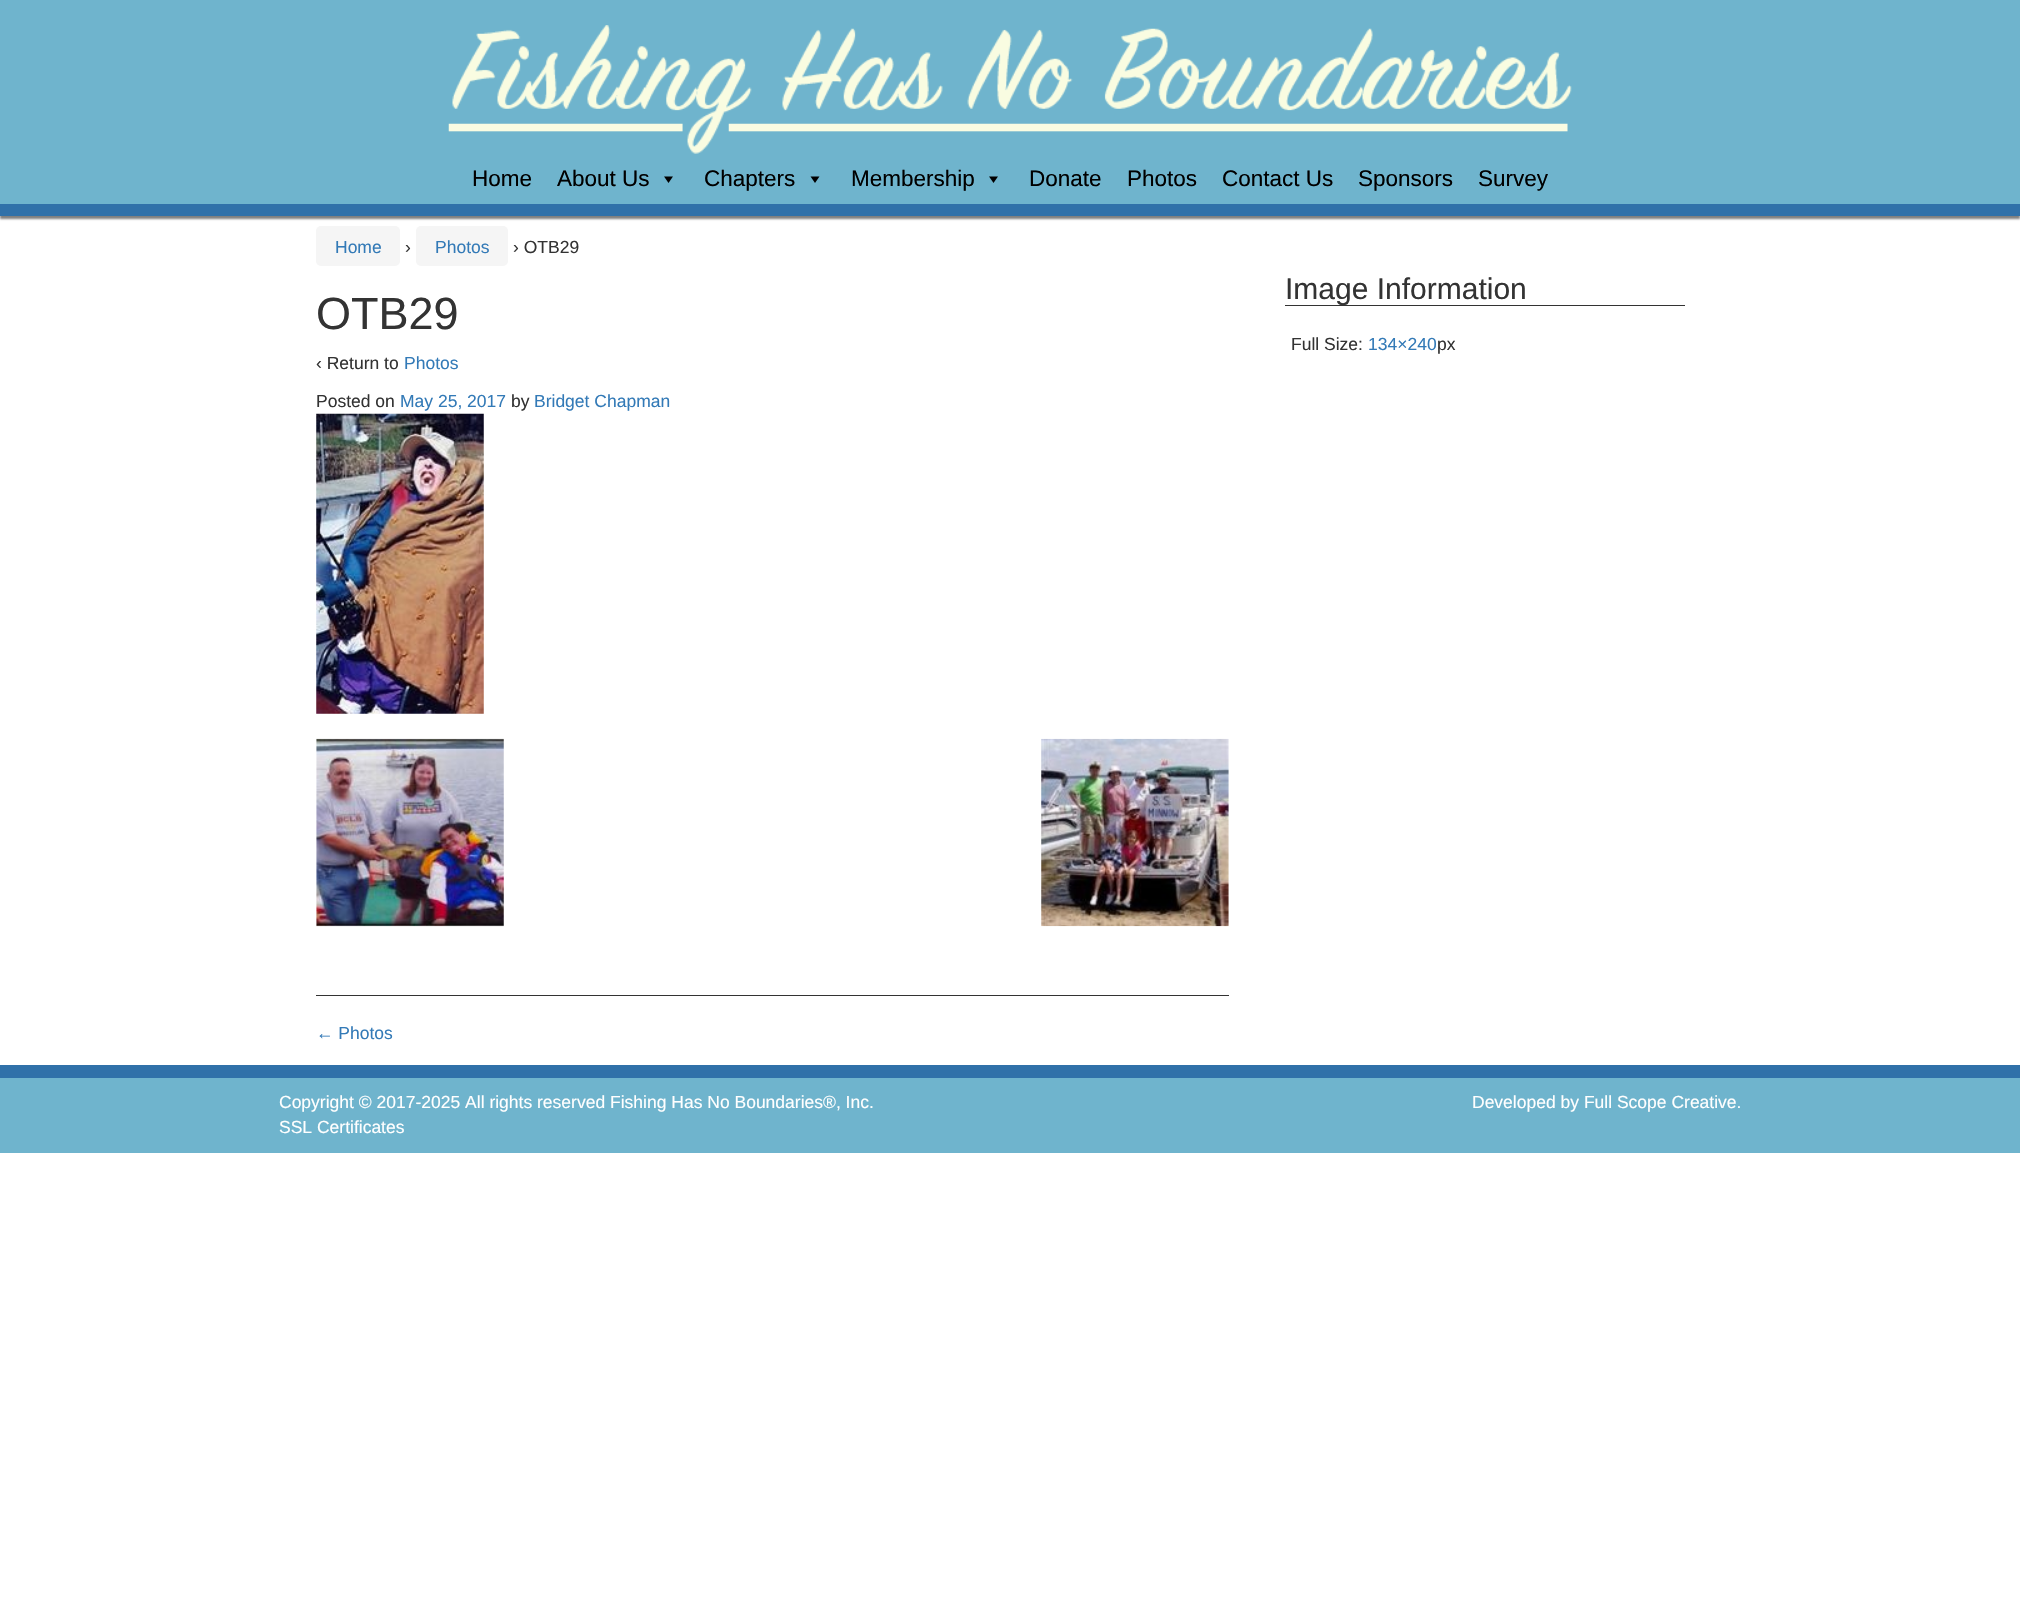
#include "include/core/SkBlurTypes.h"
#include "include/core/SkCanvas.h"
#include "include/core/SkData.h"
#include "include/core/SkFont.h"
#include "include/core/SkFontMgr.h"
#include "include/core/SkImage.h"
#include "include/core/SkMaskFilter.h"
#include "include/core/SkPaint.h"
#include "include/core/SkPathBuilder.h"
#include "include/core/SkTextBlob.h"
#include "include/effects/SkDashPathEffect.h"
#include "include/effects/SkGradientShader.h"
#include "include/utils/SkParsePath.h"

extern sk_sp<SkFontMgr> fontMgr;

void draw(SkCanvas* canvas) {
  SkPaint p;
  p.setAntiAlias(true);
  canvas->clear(SK_ColorWHITE);
  p.setColor(SkColorSetRGB(128, 128, 128));
  p.setMaskFilter(SkMaskFilter::MakeBlur(kNormal_SkBlurStyle, 1));
  canvas->drawRect(SkRect::MakeLTRB(0, 3, 2020, 219), p);
  p.setMaskFilter(nullptr);
  p.setColor(SkColorSetRGB(111, 180, 205));
  canvas->drawRect(SkRect::MakeLTRB(0, 0, 2020, 204), p);
  p.setColor(SkColorSetRGB(48, 113, 169));
  canvas->drawRect(SkRect::MakeLTRB(0, 204, 2020, 216), p);
  canvas->drawImageRect(SkImages::DeferredFromEncodedData(SkData::MakeFromFileName("images/1.png")), SkRect::MakeLTRB(448, 25, 1572, 154), SkSamplingOptions());
  p.setColor(SK_ColorBLACK);
  canvas->drawPath(SkPathBuilder().moveTo(673, 176.5f).lineTo(668.5f, 183).lineTo(664, 176.5f).close().detach(), p);
  canvas->drawPath(SkPathBuilder().moveTo(819.5f, 176.5f).lineTo(815, 183).lineTo(810.5f, 176.5f).close().detach(), p);
  canvas->drawPath(SkPathBuilder().moveTo(998, 176.5f).lineTo(993.5f, 183).lineTo(989, 176.5f).close().detach(), p);
  p.setColor(SkColorSetRGB(245, 245, 245));
  canvas->drawRoundRect(SkRect::MakeLTRB(316, 226, 400, 266), 5, 5, p);
  canvas->drawRoundRect(SkRect::MakeLTRB(416, 226, 508, 266), 5, 5, p);
  p.setColor(SkColorSetRGB(51, 51, 51));
  canvas->drawRect(SkRect::MakeLTRB(316, 995, 1229, 996), p);
  canvas->drawImageRect(SkImages::DeferredFromEncodedData(SkData::MakeFromFileName("images/2.png")), SkRect::MakeLTRB(316, 413, 484, 714), SkSamplingOptions());
  canvas->drawImageRect(SkImages::DeferredFromEncodedData(SkData::MakeFromFileName("images/3.png")), SkRect::MakeLTRB(316, 738, 504, 927), SkSamplingOptions());
  canvas->drawImageRect(SkImages::DeferredFromEncodedData(SkData::MakeFromFileName("images/4.png")), SkRect::MakeLTRB(1041, 738, 1229, 927), SkSamplingOptions());
  canvas->drawRect(SkRect::MakeLTRB(1285, 305, 1685, 306), p);
  p.setColor(SkColorSetRGB(111, 180, 205));
  canvas->drawRect(SkRect::MakeLTRB(0, 1078, 2020, 1153), p);
  p.setColor(SkColorSetRGB(48, 113, 169));
  canvas->drawRect(SkRect::MakeLTRB(0, 1065, 2020, 1078), p);
  SkFont font1(fontMgr->matchFamilyStyle("Liberation Sans", SkFontStyle::Normal()), 22.5f);
  font1.setSubpixel(true);
  p.setColor(SK_ColorBLACK);
  canvas->drawString("Home", 472, 186, font1, p);
  canvas->drawString("About Us", 557, 186, font1, p);
  canvas->drawString("Chapters", 704, 186, font1, p);
  canvas->drawString("Membership", 851, 186, font1, p);
  canvas->drawString("Donate", 1029, 186, font1, p);
  canvas->drawString("Photos", 1127, 186, font1, p);
  canvas->drawString("Contact Us", 1222, 186, font1, p);
  canvas->drawString("Sponsors", 1358, 186, font1, p);
  canvas->drawString("Survey", 1478, 186, font1, p);
  SkFont font2(fontMgr->matchFamilyStyle("Liberation Sans", SkFontStyle::Normal()), 17.5f);
  font2.setSubpixel(true);
  p.setColor(SkColorSetRGB(51, 122, 183));
  canvas->drawString("Home", 335, 253, font2, p);
  p.setColor(SkColorSetRGB(51, 51, 51));
  canvas->drawString("›", 405, 253, font2, p);
  p.setColor(SkColorSetRGB(51, 122, 183));
  canvas->drawString("Photos", 435, 253, font2, p);
  p.setColor(SkColorSetRGB(51, 51, 51));
  canvas->drawString("› OTB29", 513, 253, font2, p);
  SkFont font3(fontMgr->matchFamilyStyle("Liberation Sans", SkFontStyle::Normal()), 45);
  font3.setSubpixel(true);
  canvas->drawString("OTB29", 316, 329, font3, p);
  canvas->drawString("‹ Return to", 316, 369, font2, p);
  p.setColor(SkColorSetRGB(51, 122, 183));
  canvas->drawString("Photos", 404, 369, font2, p);
  p.setColor(SkColorSetRGB(51, 51, 51));
  canvas->drawString("Posted on", 316, 407, font2, p);
  p.setColor(SkColorSetRGB(51, 122, 183));
  canvas->drawString("May 25, 2017", 400, 407, font2, p);
  p.setColor(SkColorSetRGB(51, 51, 51));
  canvas->drawString("by", 511, 407, font2, p);
  p.setColor(SkColorSetRGB(51, 122, 183));
  canvas->drawString("Bridget Chapman", 534, 407, font2, p);
  canvas->drawString("← Photos", 316, 1039, font2, p);
  SkFont font4(fontMgr->matchFamilyStyle("Liberation Sans", SkFontStyle::Normal()), 30);
  font4.setSubpixel(true);
  p.setColor(SkColorSetRGB(51, 51, 51));
  canvas->drawString("Image Information", 1285, 299, font4, p);
  canvas->drawString("Full Size:", 1291, 350, font2, p);
  p.setColor(SkColorSetRGB(51, 122, 183));
  canvas->drawString("134×240", 1368, 350, font2, p);
  p.setColor(SkColorSetRGB(51, 51, 51));
  canvas->drawString("px", 1437, 350, font2, p);
  p.setColor(SK_ColorWHITE);
  canvas->drawString("Copyright © 2017-2025 All rights reserved Fishing Has No Boundaries®, Inc.", 279, 1108, font2, p);
  canvas->drawString("SSL Certificates", 279, 1133, font2, p);
  canvas->drawString("Developed by Full Scope Creative.", 1472, 1108, font2, p);
}
